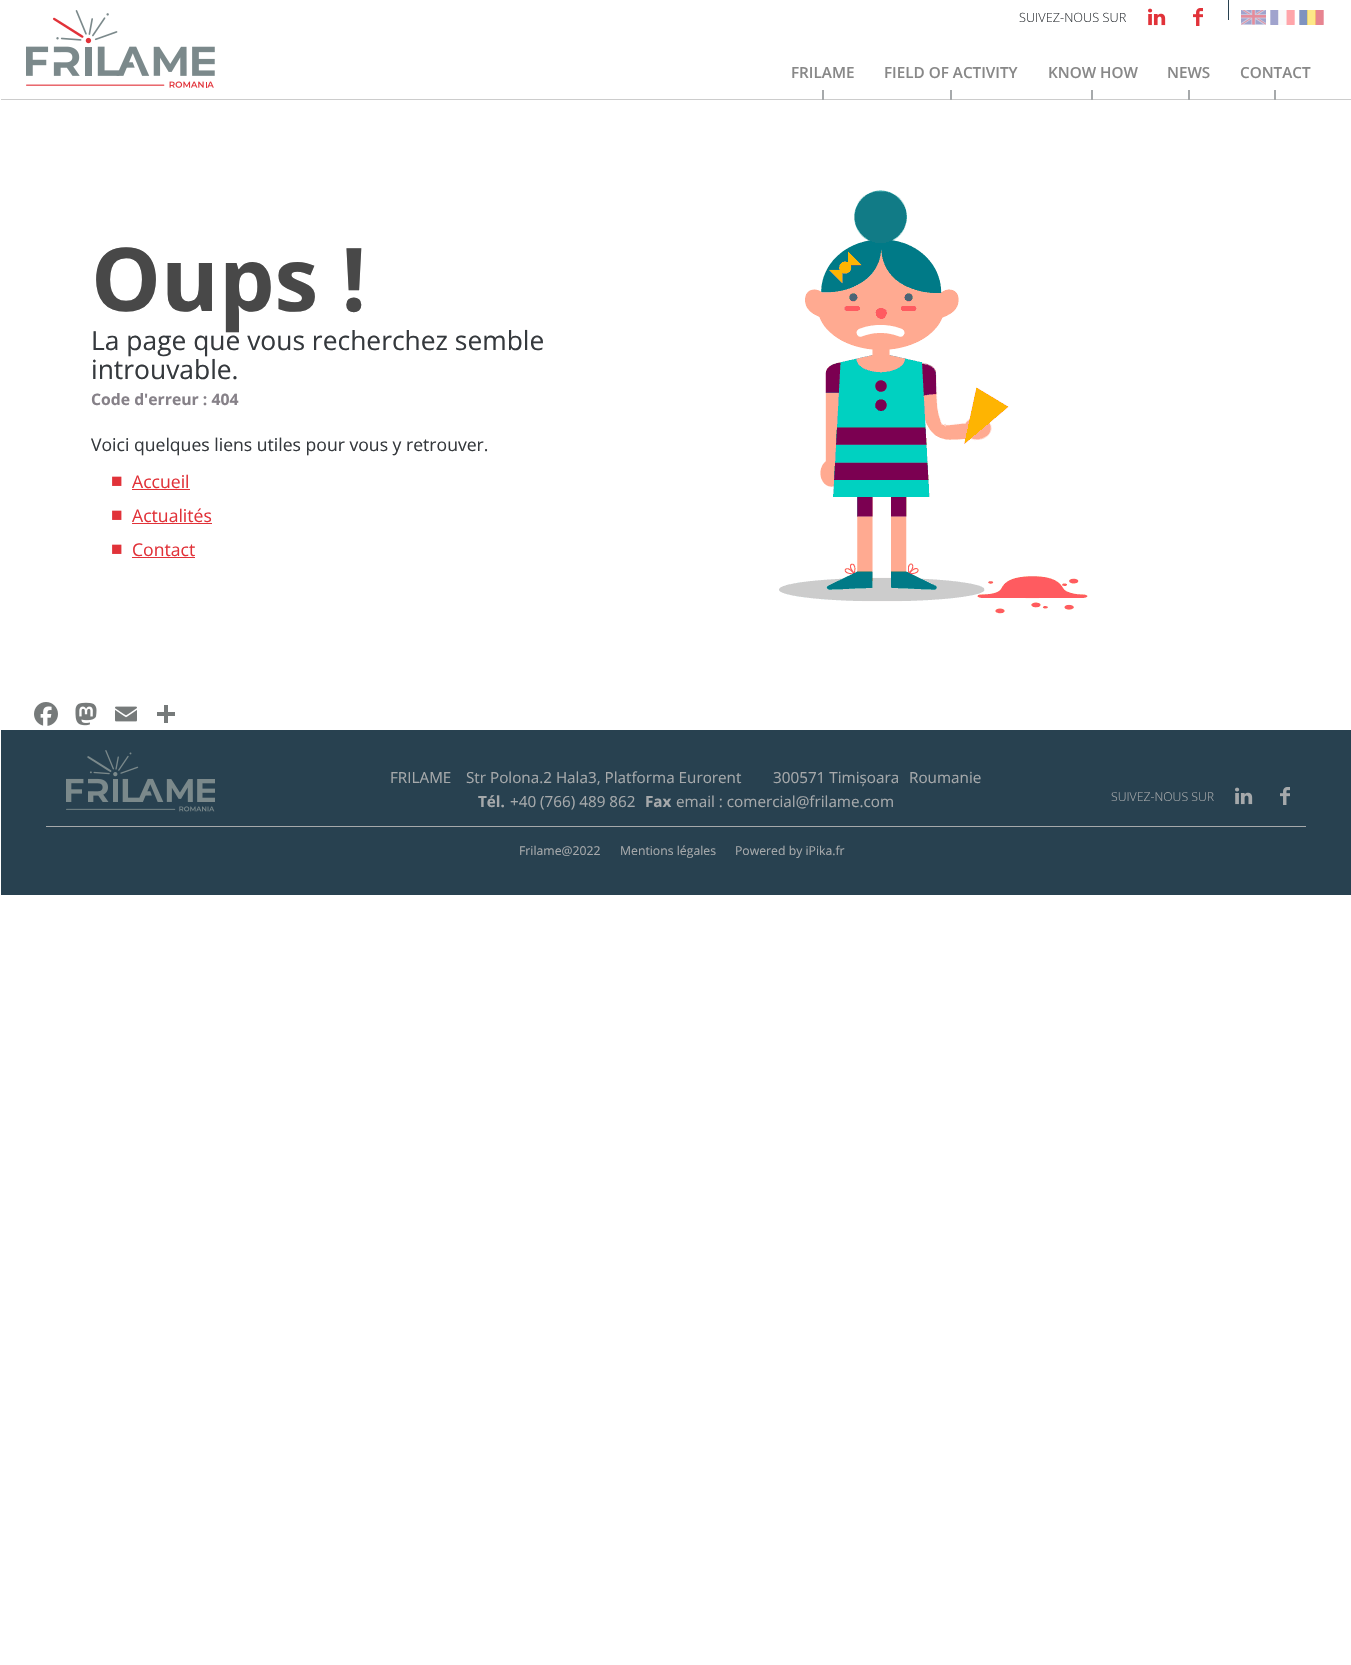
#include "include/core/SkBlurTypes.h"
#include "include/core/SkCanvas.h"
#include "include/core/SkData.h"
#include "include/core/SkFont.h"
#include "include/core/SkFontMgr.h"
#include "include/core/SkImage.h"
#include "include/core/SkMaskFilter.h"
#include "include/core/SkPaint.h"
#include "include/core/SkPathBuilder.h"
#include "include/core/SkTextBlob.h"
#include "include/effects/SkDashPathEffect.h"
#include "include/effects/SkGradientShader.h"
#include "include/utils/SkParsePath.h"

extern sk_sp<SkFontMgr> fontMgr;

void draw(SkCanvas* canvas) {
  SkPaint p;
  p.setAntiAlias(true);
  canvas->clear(SK_ColorWHITE);
  canvas->drawImageRect(SkImages::DeferredFromEncodedData(SkData::MakeFromFileName("images/1.png")), SkRect::MakeLTRB(26, 10, 215, 88), SkSamplingOptions());
  canvas->drawImageRect(SkImages::DeferredFromEncodedData(SkData::MakeFromFileName("images/2.png")), SkRect::MakeLTRB(1148, 8, 1166, 26), SkSamplingOptions());
  canvas->drawImageRect(SkImages::DeferredFromEncodedData(SkData::MakeFromFileName("images/3.png")), SkRect::MakeLTRB(1193, 8, 1203, 26), SkSamplingOptions());
  p.setColor(SkColorSetRGB(40, 65, 80));
  canvas->drawRect(SkRect::MakeLTRB(1228, 0, 1229, 20), p);
  canvas->drawImageRect(SkImages::DeferredFromEncodedData(SkData::MakeFromFileName("images/4.png")), SkRect::MakeLTRB(1241, 10, 1266, 25), SkSamplingOptions());
  canvas->drawImageRect(SkImages::DeferredFromEncodedData(SkData::MakeFromFileName("images/5.png")), SkRect::MakeLTRB(1270, 10, 1295, 25), SkSamplingOptions());
  canvas->drawImageRect(SkImages::DeferredFromEncodedData(SkData::MakeFromFileName("images/6.png")), SkRect::MakeLTRB(1299, 10, 1324, 25), SkSamplingOptions());
  p.setColor(SkColorSetRGB(204, 204, 204));
  canvas->drawRect(SkRect::MakeLTRB(1, 99, 1351, 100), p);
  p.setColor(SkColorSetRGB(166, 169, 171));
  canvas->drawRect(SkRect::MakeLTRB(822, 90, 824, 100), p);
  canvas->drawRect(SkRect::MakeLTRB(950, 90, 952, 100), p);
  canvas->drawRect(SkRect::MakeLTRB(1091, 90, 1093, 100), p);
  canvas->drawRect(SkRect::MakeLTRB(1188, 90, 1190, 100), p);
  canvas->drawRect(SkRect::MakeLTRB(1274, 90, 1276, 100), p);
  p.setColor(SkColorSetRGB(225, 50, 57));
  canvas->drawRect(SkRect::MakeLTRB(132, 489, 190, 490), p);
  canvas->drawRect(SkRect::MakeLTRB(132, 523, 212, 524), p);
  canvas->drawRect(SkRect::MakeLTRB(132, 557, 195, 558), p);
  canvas->drawImageRect(SkImages::DeferredFromEncodedData(SkData::MakeFromFileName("images/7.png")), SkRect::MakeLTRB(779, 190, 1088, 614), SkSamplingOptions());
  canvas->drawImageRect(SkImages::DeferredFromEncodedData(SkData::MakeFromFileName("images/8.png")), SkRect::MakeLTRB(34, 702, 58, 726), SkSamplingOptions());
  canvas->drawImageRect(SkImages::DeferredFromEncodedData(SkData::MakeFromFileName("images/9.png")), SkRect::MakeLTRB(75, 702, 97, 726), SkSamplingOptions());
  canvas->drawImageRect(SkImages::DeferredFromEncodedData(SkData::MakeFromFileName("images/10.png")), SkRect::MakeLTRB(115, 706, 137, 722), SkSamplingOptions());
  p.setColor(SkColorSetRGB(118, 122, 122));
  canvas->drawRect(SkRect::MakeLTRB(164, 705, 168, 723), p);
  canvas->drawRect(SkRect::MakeLTRB(157, 712, 175, 716), p);
  p.setColor(SkColorSetRGB(40, 65, 80));
  canvas->drawRect(SkRect::MakeLTRB(1, 730, 1351, 895), p);
  canvas->drawImageRect(SkImages::DeferredFromEncodedData(SkData::MakeFromFileName("images/11.png")), SkRect::MakeLTRB(66, 750, 215, 812), SkSamplingOptions());
  canvas->drawImageRect(SkImages::DeferredFromEncodedData(SkData::MakeFromFileName("images/12.png")), SkRect::MakeLTRB(1235, 787, 1253, 805), SkSamplingOptions());
  canvas->drawImageRect(SkImages::DeferredFromEncodedData(SkData::MakeFromFileName("images/13.png")), SkRect::MakeLTRB(1280, 787, 1290, 805), SkSamplingOptions());
  p.setColor(SkColorSetRGB(166, 169, 171));
  canvas->drawRect(SkRect::MakeLTRB(46, 826, 1306, 827), p);
  SkFont font1(fontMgr->matchFamilyStyle("Open Sans", SkFontStyle(300, SkFontStyle::kNormal_Width, SkFontStyle::kUpright_Slant)), 12.75f);
  font1.setSubpixel(true);
  p.setColor(SkColorSetRGB(53, 57, 61));
  canvas->drawString("SUIVEZ-NOUS SUR", 1019, 22, font1, p);
  SkFont font2(fontMgr->matchFamilyStyle("Open Sans", SkFontStyle(600, SkFontStyle::kNormal_Width, SkFontStyle::kUpright_Slant)), 15.25f);
  font2.setSubpixel(true);
  p.setColor(SkColorSetRGB(136, 136, 136));
  canvas->drawString("FRILAME", 791, 78, font2, p);
  canvas->drawString("FIELD OF ACTIVITY", 884, 78, font2, p);
  canvas->drawString("KNOW HOW", 1048, 78, font2, p);
  canvas->drawString("NEWS", 1167, 78, font2, p);
  canvas->drawString("CONTACT", 1240, 78, font2, p);
  SkFont font3(fontMgr->matchFamilyStyle("Open Sans", SkFontStyle::Bold()), 88);
  font3.setSubpixel(true);
  p.setColor(SkColorSetRGB(72, 72, 72));
  canvas->drawString("Oups !", 91, 311, font3, p);
  SkFont font4(fontMgr->matchFamilyStyle("Open Sans", SkFontStyle::Normal()), 26.4f);
  font4.setSubpixel(true);
  p.setColor(SkColorSetRGB(53, 57, 61));
  canvas->drawString("La page que vous recherchez semble", 91, 350, font4, p);
  canvas->drawString("introuvable.", 91, 379, font4, p);
  SkFont font5(fontMgr->matchFamilyStyle("Open Sans", SkFontStyle::Bold()), 15.75f);
  font5.setSubpixel(true);
  p.setColor(SkColorSetRGB(134, 129, 136));
  canvas->drawString("Code d'erreur : 404", 91, 405, font5, p);
  SkFont font6(fontMgr->matchFamilyStyle("Open Sans", SkFontStyle::Normal()), 17.6f);
  font6.setSubpixel(true);
  p.setColor(SkColorSetRGB(53, 57, 61));
  canvas->drawString("Voici quelques liens utiles pour vous y retrouver.", 91, 451, font6, p);
  SkFont font7(fontMgr->matchFamilyStyle("Liberation Sans", SkFontStyle::Normal()), 19);
  font7.setSubpixel(true);
  p.setColor(SkColorSetRGB(225, 50, 57));
  canvas->drawString("■", 111, 487, font7, p);
  canvas->drawString("Accueil", 132, 488, font6, p);
  canvas->drawString("■", 111, 521, font7, p);
  canvas->drawString("Actualités", 132, 522, font6, p);
  canvas->drawString("■", 111, 555, font7, p);
  canvas->drawString("Contact", 132, 556, font6, p);
  SkFont font8(fontMgr->matchFamilyStyle("Open Sans", SkFontStyle::Normal()), 15.25f);
  font8.setSubpixel(true);
  p.setColor(SkColorSetRGB(166, 169, 171));
  canvas->drawString("FRILAME", 390, 783, font8, p);
  canvas->drawString("Str Polona.2 Hala3, Platforma Eurorent", 466, 783, font8, p);
  canvas->drawString("300571 Timișoara", 773, 783, font8, p);
  canvas->drawString("Roumanie", 909, 783, font8, p);
  SkFont font9(fontMgr->matchFamilyStyle("Open Sans", SkFontStyle::Bold()), 15.25f);
  font9.setSubpixel(true);
  canvas->drawString("Tél.", 478, 807, font9, p);
  canvas->drawString("+40 (766) 489 862", 510, 807, font8, p);
  canvas->drawString("Fax", 645, 807, font9, p);
  canvas->drawString("email : comercial@frilame.com", 676, 807, font8, p);
  SkFont font10(fontMgr->matchFamilyStyle("Open Sans", SkFontStyle(300, SkFontStyle::kNormal_Width, SkFontStyle::kUpright_Slant)), 12.25f);
  font10.setSubpixel(true);
  canvas->drawString("SUIVEZ-NOUS SUR", 1111, 801, font10, p);
  SkFont font11(fontMgr->matchFamilyStyle("Open Sans", SkFontStyle::Normal()), 12.25f);
  font11.setSubpixel(true);
  canvas->drawString("Frilame@2022", 519, 855, font11, p);
  canvas->drawString("Mentions légales", 620, 855, font11, p);
  canvas->drawString("Powered by iPika.fr", 735, 855, font11, p);
}
